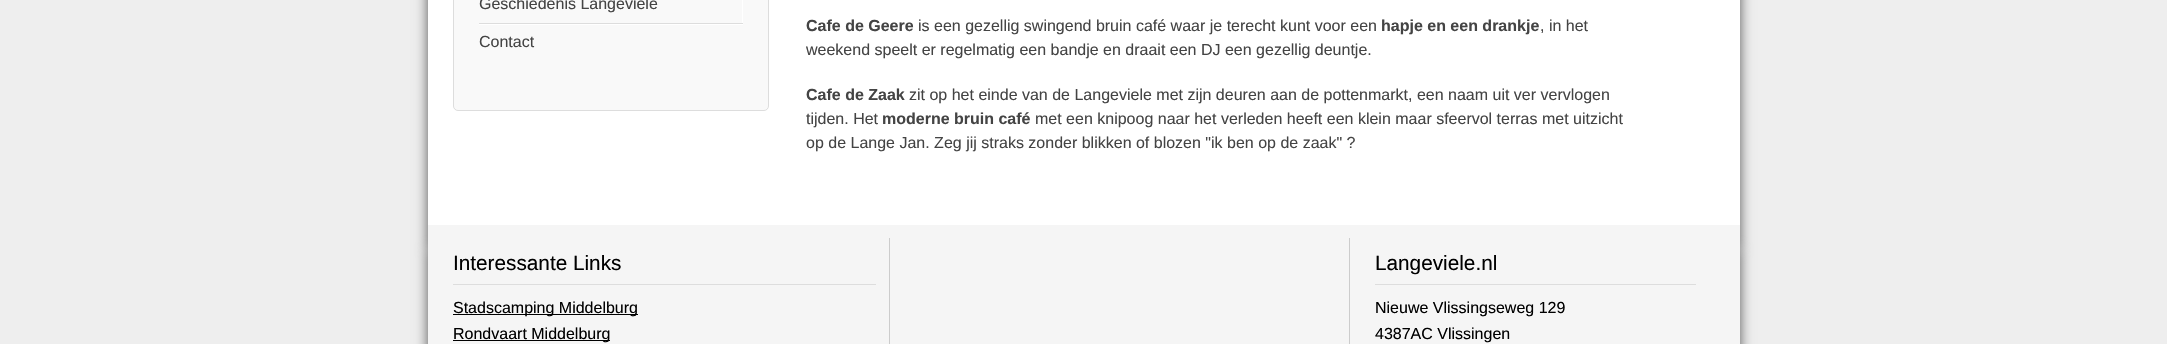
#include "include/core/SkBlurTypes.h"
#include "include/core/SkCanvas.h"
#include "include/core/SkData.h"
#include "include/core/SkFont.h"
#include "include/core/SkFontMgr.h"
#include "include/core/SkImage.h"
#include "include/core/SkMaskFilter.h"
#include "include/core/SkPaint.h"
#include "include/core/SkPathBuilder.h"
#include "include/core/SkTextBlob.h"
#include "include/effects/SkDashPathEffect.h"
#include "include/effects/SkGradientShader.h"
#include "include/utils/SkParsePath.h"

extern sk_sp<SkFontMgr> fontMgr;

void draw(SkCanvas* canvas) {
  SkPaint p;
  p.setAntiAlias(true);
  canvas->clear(SkColorSetRGB(238, 238, 238));
  p.setColor(SkColorSetRGB(85, 85, 85));
  p.setMaskFilter(SkMaskFilter::MakeBlur(kNormal_SkBlurStyle, 6));
  canvas->drawRect(SkRect::MakeLTRB(428, -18, 1740, 250), p);
  p.setMaskFilter(nullptr);
  p.setColor(SK_ColorWHITE);
  canvas->drawRect(SkRect::MakeLTRB(428, 0, 1740, 225), p);
  p.setColor(SkColorSetRGB(249, 249, 249));
  canvas->drawRoundRect(SkRect::MakeLTRB(453.5f, -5.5f, 768.5f, 110.5f), 4.5f, 4.5f, p);
  p.setStyle(SkPaint::kStroke_Style);
  p.setStrokeWidth(1);
  p.setColor(SkColorSetRGB(221, 221, 221));
  canvas->drawRoundRect(SkRect::MakeLTRB(453.5f, -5.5f, 768.5f, 110.5f), 4.5f, 4.5f, p);
  p.setStyle(SkPaint::kFill_Style);
  p.setColor(SK_ColorWHITE);
  canvas->drawPath(SkPathBuilder().moveTo(479, 24).lineTo(479, 25).lineTo(743, 25).lineTo(743, -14).lineTo(742, -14).lineTo(742, 24).close().detach(), p);
  p.setColor(SkColorSetRGB(221, 221, 221));
  canvas->drawRect(SkRect::MakeLTRB(479, 23, 743, 24), p);
  p.setColor(SkColorSetRGB(85, 85, 85));
  p.setMaskFilter(SkMaskFilter::MakeBlur(kNormal_SkBlurStyle, 6));
  canvas->drawRect(SkRect::MakeLTRB(428, 250, 1740, 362), p);
  p.setMaskFilter(nullptr);
  p.setColor(SkColorSetRGB(245, 245, 245));
  canvas->drawRect(SkRect::MakeLTRB(428, 225, 1740, 344), p);
  p.setColor(SkColorSetRGB(204, 204, 204));
  canvas->drawRect(SkRect::MakeLTRB(889, 238, 890, 344), p);
  p.setColor(SkColorSetRGB(221, 221, 221));
  canvas->drawRect(SkRect::MakeLTRB(453, 284, 876, 285), p);
  p.setColor(SK_ColorBLACK);
  canvas->drawRect(SkRect::MakeLTRB(453, 314, 638, 315), p);
  canvas->drawRect(SkRect::MakeLTRB(453, 340, 610, 341), p);
  p.setColor(SkColorSetRGB(204, 204, 204));
  canvas->drawRect(SkRect::MakeLTRB(1349, 238, 1350, 344), p);
  p.setColor(SkColorSetRGB(221, 221, 221));
  canvas->drawRect(SkRect::MakeLTRB(1375, 284, 1696, 285), p);
  SkFont font1(fontMgr->matchFamilyStyle("Liberation Sans", SkFontStyle::Normal()), 16);
  font1.setSubpixel(true);
  p.setColor(SkColorSetRGB(68, 68, 68));
  canvas->drawString("Geschiedenis Langeviele", 479, 9, font1, p);
  canvas->drawString("Contact", 479, 47, font1, p);
  SkFont font2(fontMgr->matchFamilyStyle("Liberation Sans", SkFontStyle::Bold()), 16);
  font2.setSubpixel(true);
  canvas->drawString("Cafe de Geere", 806, 31, font2, p);
  canvas->drawString("is een gezellig swingend bruin café waar je terecht kunt voor een", 918, 31, font1, p);
  canvas->drawString("hapje en een drankje", 1381, 31, font2, p);
  canvas->drawString(", in het", 1540, 31, font1, p);
  canvas->drawString("weekend speelt er regelmatig een bandje en draait een DJ een gezellig deuntje.", 806, 55, font1, p);
  canvas->drawString("Cafe de Zaak", 806, 100, font2, p);
  canvas->drawString("zit op het einde van de Langeviele met zijn deuren aan de pottenmarkt, een naam uit ver vervlogen", 909, 100, font1, p);
  canvas->drawString("tijden. Het", 806, 124, font1, p);
  canvas->drawString("moderne bruin café", 882, 124, font2, p);
  canvas->drawString("met een knipoog naar het verleden heeft een klein maar sfeervol terras met uitzicht", 1035, 124, font1, p);
  canvas->drawString("op de Lange Jan. Zeg jij straks zonder blikken of blozen \"ik ben op de zaak\" ?", 806, 148, font1, p);
  SkFont font3(fontMgr->matchFamilyStyle("Liberation Sans", SkFontStyle::Normal()), 20.75f);
  font3.setSubpixel(true);
  p.setColor(SK_ColorBLACK);
  canvas->drawString("Interessante Links", 453, 270, font3, p);
  canvas->drawString("Stadscamping Middelburg", 453, 313, font1, p);
  canvas->drawString("Rondvaart Middelburg", 453, 339, font1, p);
  canvas->drawString("Langeviele.nl", 1375, 270, font3, p);
  canvas->drawString("Nieuwe Vlissingseweg 129", 1375, 313, font1, p);
  canvas->drawString("4387AC Vlissingen", 1375, 339, font1, p);
}
